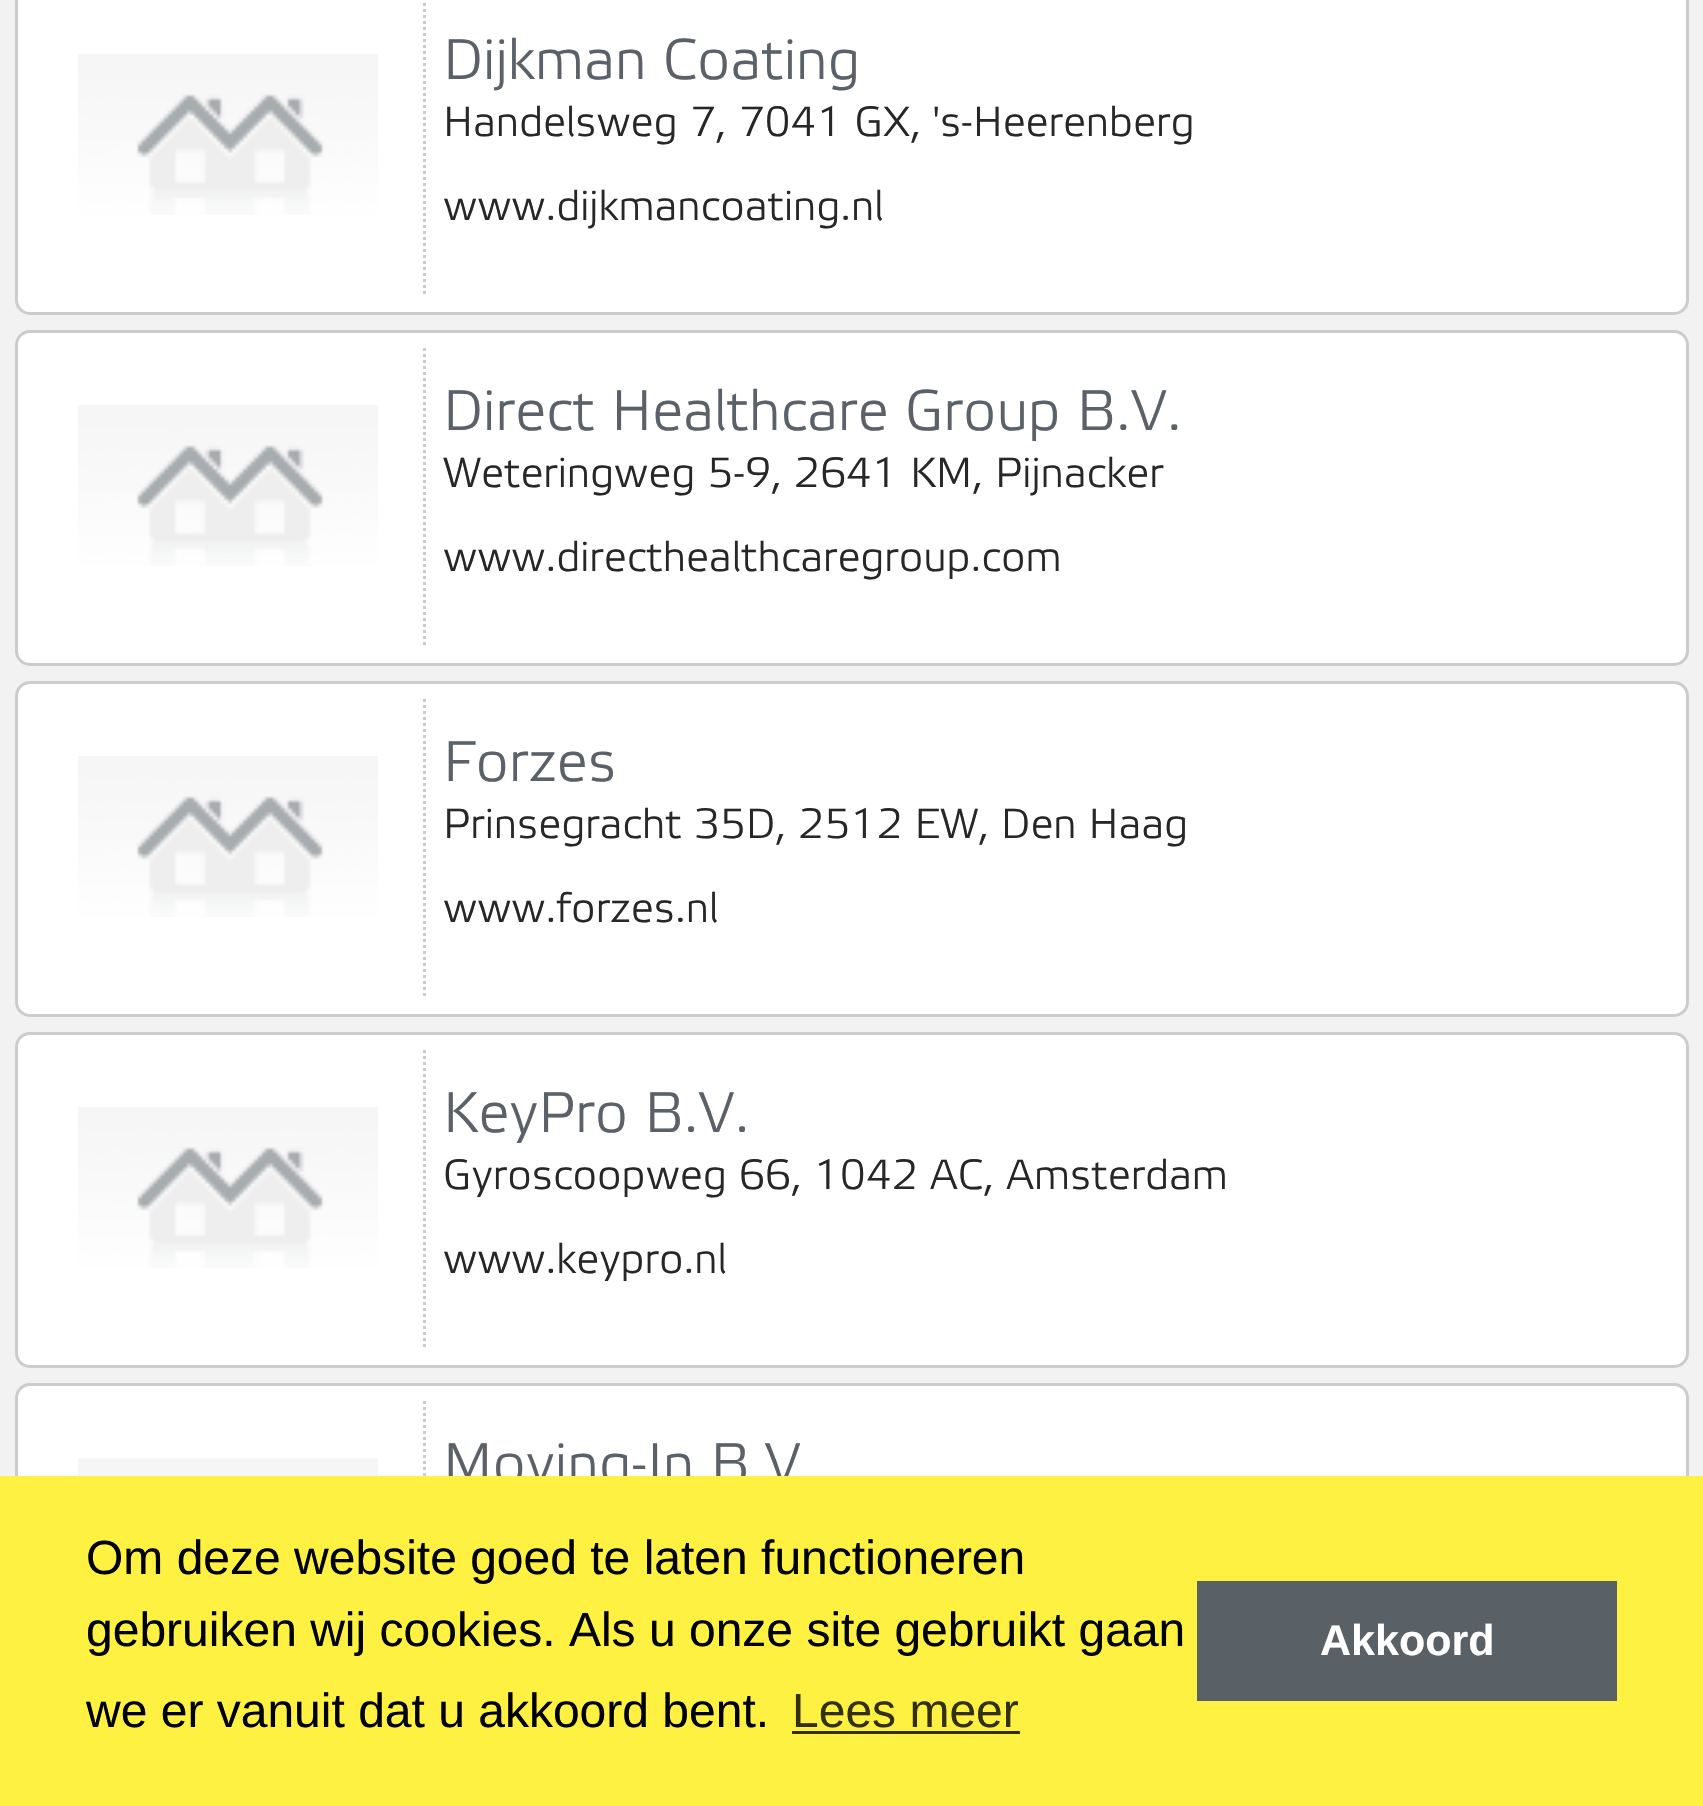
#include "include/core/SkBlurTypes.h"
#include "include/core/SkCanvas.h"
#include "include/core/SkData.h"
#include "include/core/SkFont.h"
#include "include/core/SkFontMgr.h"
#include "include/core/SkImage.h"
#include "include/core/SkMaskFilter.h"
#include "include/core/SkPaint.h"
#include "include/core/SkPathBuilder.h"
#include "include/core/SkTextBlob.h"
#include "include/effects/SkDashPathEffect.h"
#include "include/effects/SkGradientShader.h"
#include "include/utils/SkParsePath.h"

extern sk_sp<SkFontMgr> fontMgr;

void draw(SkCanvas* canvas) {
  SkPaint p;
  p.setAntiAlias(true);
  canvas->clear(SkColorSetRGB(242, 242, 242));
  p.setColor(SK_ColorWHITE);
  canvas->drawRoundRect(SkRect::MakeLTRB(16.5f, -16.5f, 1687.5f, 313.5f), 13.5f, 13.5f, p);
  p.setStyle(SkPaint::kStroke_Style);
  p.setStrokeWidth(3);
  p.setColor(SkColorSetRGB(204, 204, 204));
  canvas->drawRoundRect(SkRect::MakeLTRB(16.5f, -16.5f, 1687.5f, 313.5f), 13.5f, 13.5f, p);
  p.setPathEffect(SkDashPathEffect::Make({{3, 3}}, 0));
  canvas->drawPath(SkPathBuilder().moveTo(424.5f, -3).lineTo(424.5f, 297).detach(), p);
  p.setPathEffect(nullptr);
  canvas->drawImageRect(SkImages::DeferredFromEncodedData(SkData::MakeFromFileName("images/1.png")), SkRect::MakeLTRB(78, 54, 378, 215), SkSamplingOptions());
  p.setStyle(SkPaint::kFill_Style);
  p.setColor(SK_ColorWHITE);
  canvas->drawRoundRect(SkRect::MakeLTRB(16.5f, 331.5f, 1687.5f, 664.5f), 13.5f, 13.5f, p);
  p.setStyle(SkPaint::kStroke_Style);
  p.setColor(SkColorSetRGB(204, 204, 204));
  canvas->drawRoundRect(SkRect::MakeLTRB(16.5f, 331.5f, 1687.5f, 664.5f), 13.5f, 13.5f, p);
  p.setPathEffect(SkDashPathEffect::Make({{3, 3}}, 0));
  canvas->drawPath(SkPathBuilder().moveTo(424.5f, 348).lineTo(424.5f, 648).detach(), p);
  p.setPathEffect(nullptr);
  canvas->drawImageRect(SkImages::DeferredFromEncodedData(SkData::MakeFromFileName("images/1.png")), SkRect::MakeLTRB(78, 405, 378, 566), SkSamplingOptions());
  p.setStyle(SkPaint::kFill_Style);
  p.setColor(SK_ColorWHITE);
  canvas->drawRoundRect(SkRect::MakeLTRB(16.5f, 682.5f, 1687.5f, 1015.5f), 13.5f, 13.5f, p);
  p.setStyle(SkPaint::kStroke_Style);
  p.setColor(SkColorSetRGB(204, 204, 204));
  canvas->drawRoundRect(SkRect::MakeLTRB(16.5f, 682.5f, 1687.5f, 1015.5f), 13.5f, 13.5f, p);
  p.setPathEffect(SkDashPathEffect::Make({{3, 3}}, 0));
  canvas->drawPath(SkPathBuilder().moveTo(424.5f, 699).lineTo(424.5f, 999).detach(), p);
  p.setPathEffect(nullptr);
  canvas->drawImageRect(SkImages::DeferredFromEncodedData(SkData::MakeFromFileName("images/1.png")), SkRect::MakeLTRB(78, 756, 378, 917), SkSamplingOptions());
  p.setStyle(SkPaint::kFill_Style);
  p.setColor(SK_ColorWHITE);
  canvas->drawRoundRect(SkRect::MakeLTRB(16.5f, 1033.5f, 1687.5f, 1366.5f), 13.5f, 13.5f, p);
  p.setStyle(SkPaint::kStroke_Style);
  p.setColor(SkColorSetRGB(204, 204, 204));
  canvas->drawRoundRect(SkRect::MakeLTRB(16.5f, 1033.5f, 1687.5f, 1366.5f), 13.5f, 13.5f, p);
  p.setPathEffect(SkDashPathEffect::Make({{3, 3}}, 0));
  canvas->drawPath(SkPathBuilder().moveTo(424.5f, 1050).lineTo(424.5f, 1350).detach(), p);
  p.setPathEffect(nullptr);
  canvas->drawImageRect(SkImages::DeferredFromEncodedData(SkData::MakeFromFileName("images/1.png")), SkRect::MakeLTRB(78, 1107, 378, 1268), SkSamplingOptions());
  p.setStyle(SkPaint::kFill_Style);
  p.setColor(SK_ColorWHITE);
  canvas->drawRoundRect(SkRect::MakeLTRB(16.5f, 1384.5f, 1687.5f, 1717.5f), 13.5f, 13.5f, p);
  p.setStyle(SkPaint::kStroke_Style);
  p.setColor(SkColorSetRGB(204, 204, 204));
  canvas->drawRoundRect(SkRect::MakeLTRB(16.5f, 1384.5f, 1687.5f, 1717.5f), 13.5f, 13.5f, p);
  p.setPathEffect(SkDashPathEffect::Make({{3, 3}}, 0));
  canvas->drawPath(SkPathBuilder().moveTo(424.5f, 1401).lineTo(424.5f, 1701).detach(), p);
  p.setPathEffect(nullptr);
  canvas->drawImageRect(SkImages::DeferredFromEncodedData(SkData::MakeFromFileName("images/2.png")), SkRect::MakeLTRB(78, 1458, 378, 1476), SkSamplingOptions());
  SkFont font1(fontMgr->matchFamilyStyle("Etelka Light", SkFontStyle(300, SkFontStyle::kNormal_Width, SkFontStyle::kUpright_Slant)), 57);
  font1.setSubpixel(true);
  p.setStyle(SkPaint::kFill_Style);
  p.setColor(SkColorSetRGB(90, 97, 104));
  canvas->drawString("Dijkman Coating", 443, 79, font1, p);
  SkFont font2(fontMgr->matchFamilyStyle("Etelka Light", SkFontStyle(300, SkFontStyle::kNormal_Width, SkFontStyle::kUpright_Slant)), 42);
  font2.setSubpixel(true);
  p.setColor(SkColorSetRGB(39, 39, 39));
  canvas->drawString("Handelsweg 7, 7041 GX, 's-Heerenberg", 443, 136, font2, p);
  canvas->drawString("www.dijkmancoating.nl", 443, 220, font2, p);
  p.setColor(SkColorSetRGB(90, 97, 104));
  canvas->drawString("Direct Healthcare Group B.V.", 443, 430, font1, p);
  p.setColor(SkColorSetRGB(39, 39, 39));
  canvas->drawString("Weteringweg 5-9, 2641 KM, Pijnacker", 443, 487, font2, p);
  canvas->drawString("www.directhealthcaregroup.com", 443, 571, font2, p);
  p.setColor(SkColorSetRGB(90, 97, 104));
  canvas->drawString("Forzes", 443, 781, font1, p);
  p.setColor(SkColorSetRGB(39, 39, 39));
  canvas->drawString("Prinsegracht 35D, 2512 EW, Den Haag", 443, 838, font2, p);
  canvas->drawString("www.forzes.nl", 443, 922, font2, p);
  p.setColor(SkColorSetRGB(90, 97, 104));
  canvas->drawString("KeyPro B.V.", 443, 1132, font1, p);
  p.setColor(SkColorSetRGB(39, 39, 39));
  canvas->drawString("Gyroscoopweg 66, 1042 AC, Amsterdam", 443, 1189, font2, p);
  canvas->drawString("www.keypro.nl", 443, 1273, font2, p);
  p.setColor(SkColorSetRGB(90, 97, 104));
  canvas->drawString("Moving-In B.V", 443, 1483, font1, p);
  p.setColor(SkColorSetRGB(254, 241, 66));
  canvas->drawRect(SkRect::MakeLTRB(0, 1476, 1703, 1806), p);
  SkFont font3(fontMgr->matchFamilyStyle("Liberation Sans", SkFontStyle::Normal()), 48);
  font3.setSubpixel(true);
  p.setColor(SK_ColorBLACK);
  canvas->drawString("Om deze website goed te laten functioneren", 86, 1574, font3, p);
  canvas->drawString("gebruiken wij cookies. Als u onze site gebruikt gaan", 86, 1646, font3, p);
  canvas->drawString("we er vanuit dat u akkoord bent.", 86, 1727, font3, p);
  p.setColor(SkColorSetRGB(51, 48, 13));
  canvas->drawString("Lees meer", 792, 1727, font3, p);
  canvas->drawRect(SkRect::MakeLTRB(792, 1731, 1020, 1734), p);
  p.setColor(SkColorSetRGB(89, 97, 103));
  canvas->drawRect(SkRect::MakeLTRB(1197, 1581, 1617, 1701), p);
  SkFont font4(fontMgr->matchFamilyStyle("Liberation Sans", SkFontStyle::Bold()), 43);
  font4.setSubpixel(true);
  p.setColor(SK_ColorWHITE);
  canvas->drawString("Akkoord", 1320, 1655, font4, p);
}
